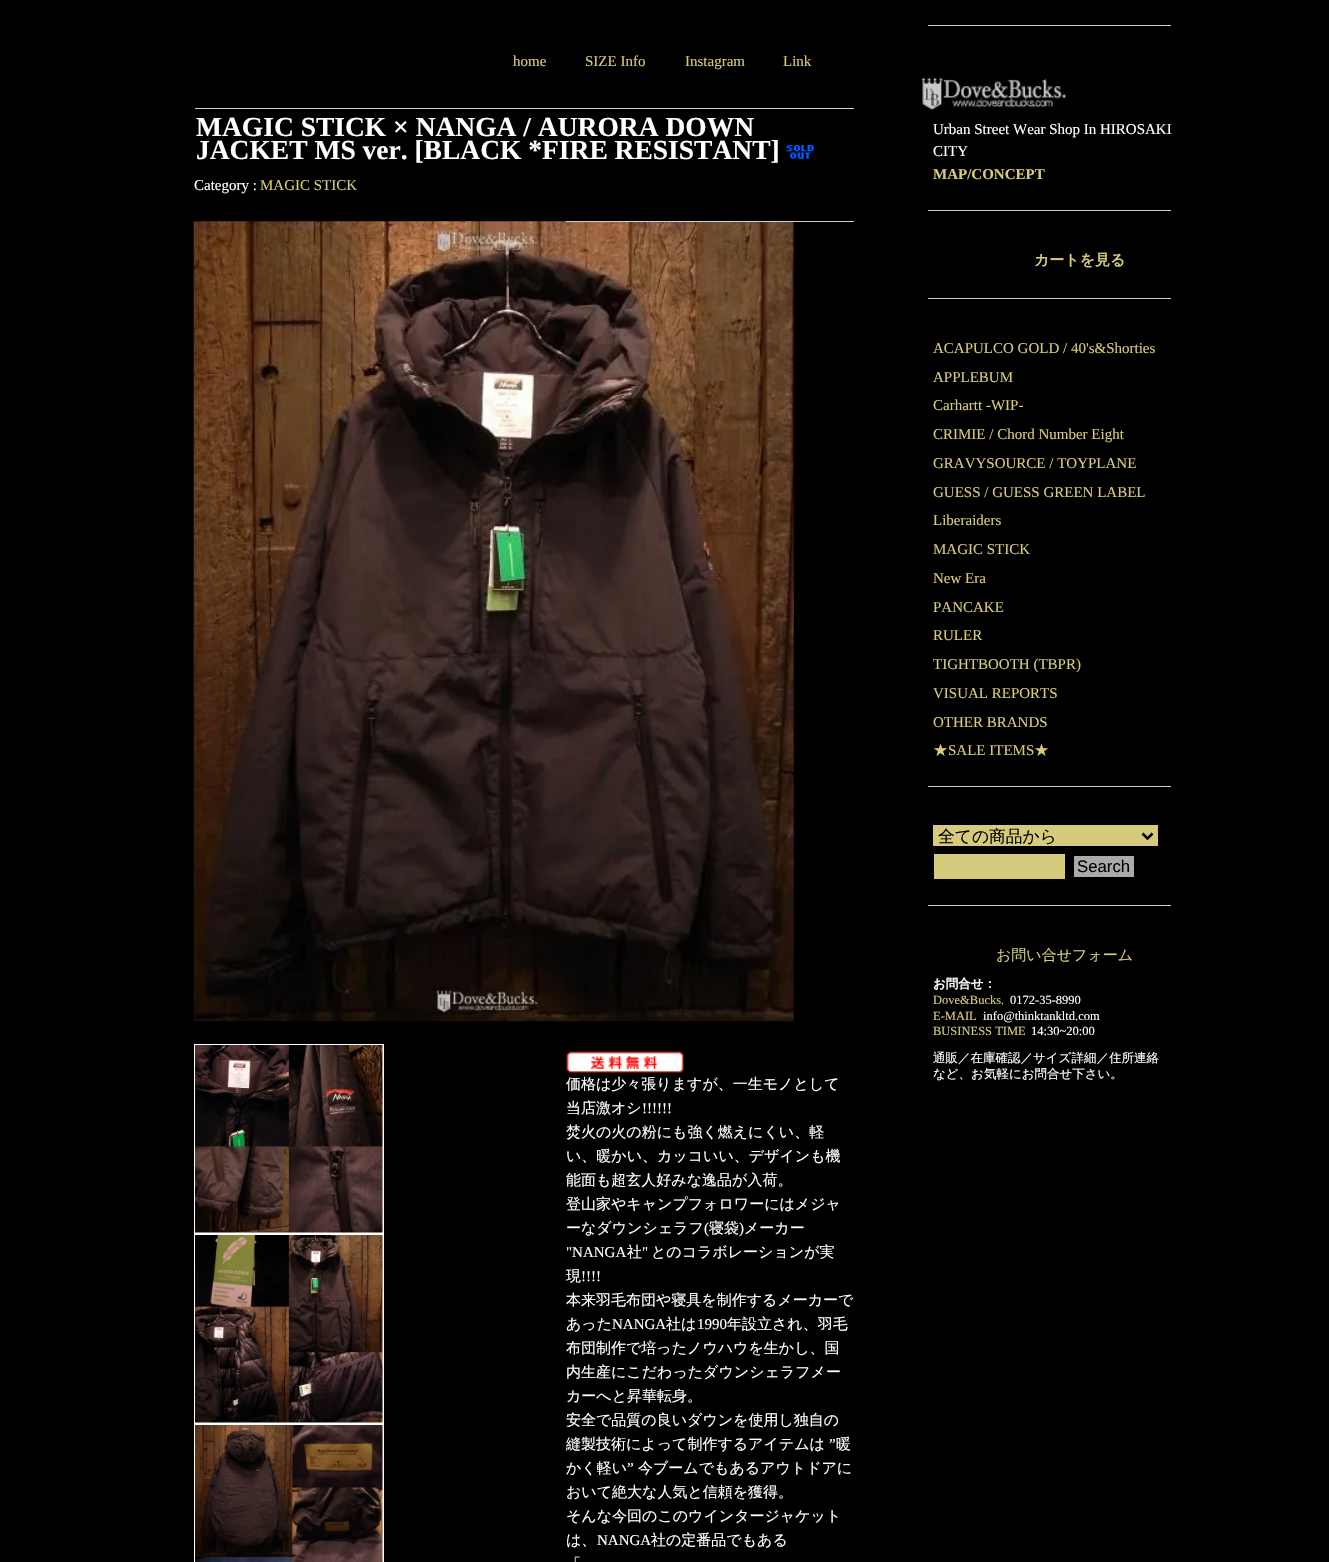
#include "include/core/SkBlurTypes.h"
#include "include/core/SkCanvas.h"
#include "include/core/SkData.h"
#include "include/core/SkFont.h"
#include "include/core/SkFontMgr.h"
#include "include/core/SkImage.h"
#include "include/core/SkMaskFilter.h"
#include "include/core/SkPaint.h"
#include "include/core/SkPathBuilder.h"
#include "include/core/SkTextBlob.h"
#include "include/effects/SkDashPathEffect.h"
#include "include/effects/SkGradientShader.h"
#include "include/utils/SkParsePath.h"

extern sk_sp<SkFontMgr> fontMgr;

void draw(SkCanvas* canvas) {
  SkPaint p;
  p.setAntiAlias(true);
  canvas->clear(SK_ColorBLACK);
  p.setColor(SkColorSetRGB(204, 204, 204));
  canvas->drawRect(SkRect::MakeLTRB(195, 108, 854, 109), p);
  canvas->drawImageRect(SkImages::DeferredFromEncodedData(SkData::MakeFromFileName("images/1.png")), SkRect::MakeLTRB(786, 145, 814, 159), SkSamplingOptions());
  canvas->drawImageRect(SkImages::DeferredFromEncodedData(SkData::MakeFromFileName("images/2.png")), SkRect::MakeLTRB(193, 221, 794, 1022), SkSamplingOptions());
  p.setColor(SK_ColorWHITE);
  canvas->drawRect(SkRect::MakeLTRB(194, 1044, 384, 1562), p);
  canvas->drawImageRect(SkImages::DeferredFromEncodedData(SkData::MakeFromFileName("images/3.png")), SkRect::MakeLTRB(195, 1045, 383, 1233), SkSamplingOptions());
  canvas->drawImageRect(SkImages::DeferredFromEncodedData(SkData::MakeFromFileName("images/4.png")), SkRect::MakeLTRB(195, 1235, 383, 1423), SkSamplingOptions());
  canvas->drawImageRect(SkImages::DeferredFromEncodedData(SkData::MakeFromFileName("images/5.png")), SkRect::MakeLTRB(195, 1425, 383, 1562), SkSamplingOptions());
  p.setColor(SkColorSetRGB(204, 204, 204));
  canvas->drawRect(SkRect::MakeLTRB(566, 221, 854, 222), p);
  canvas->drawImageRect(SkImages::DeferredFromEncodedData(SkData::MakeFromFileName("images/6.png")), SkRect::MakeLTRB(566, 1051, 684, 1073), SkSamplingOptions());
  canvas->drawRect(SkRect::MakeLTRB(928, 25, 1171, 26), p);
  canvas->drawImageRect(SkImages::DeferredFromEncodedData(SkData::MakeFromFileName("images/7.png")), SkRect::MakeLTRB(921, 77, 1067, 110), SkSamplingOptions());
  canvas->drawRect(SkRect::MakeLTRB(928, 210, 1171, 211), p);
  canvas->drawRect(SkRect::MakeLTRB(928, 298, 1171, 299), p);
  canvas->drawRect(SkRect::MakeLTRB(928, 786, 1171, 787), p);
  p.setColor(SkColorSetRGB(214, 203, 124));
  canvas->drawRect(SkRect::MakeLTRB(933, 825, 1158, 846), p);
  p.setStyle(SkPaint::kStroke_Style);
  p.setStrokeWidth(2.5f);
  p.setColor(SK_ColorBLACK);
  canvas->drawPath(SkPathBuilder().moveTo(1142.5f, 833.5f).lineTo(1147.5f, 838.5f).lineTo(1152.5f, 833.5f).detach(), p);
  p.setStyle(SkPaint::kFill_Style);
  p.setColor(SkColorSetRGB(214, 203, 124));
  canvas->drawRect(SkRect::MakeLTRB(934, 854, 1065, 879), p);
  p.setColor(SkColorSetRGB(170, 170, 170));
  canvas->drawRect(SkRect::MakeLTRB(1074, 856, 1134, 877), p);
  p.setColor(SkColorSetRGB(204, 204, 204));
  canvas->drawRect(SkRect::MakeLTRB(928, 905, 1171, 906), p);
  SkFont font1(fontMgr->matchFamilyStyle("Liberation Serif", SkFontStyle::Normal()), 15);
  font1.setSubpixel(true);
  p.setColor(SkColorSetRGB(214, 203, 124));
  canvas->drawString("home", 513, 66, font1, p);
  canvas->drawString("SIZE Info", 585, 66, font1, p);
  canvas->drawString("Instagram", 685, 66, font1, p);
  canvas->drawString("Link", 783, 66, font1, p);
  SkFont font2(fontMgr->matchFamilyStyle("Liberation Serif", SkFontStyle::Bold()), 27.5f);
  font2.setSubpixel(true);
  p.setColor(SK_ColorWHITE);
  canvas->drawString("MAGIC STICK × NANGA / AURORA DOWN", 196, 136, font2, p);
  canvas->drawString("JACKET MS ver. [BLACK *FIRE RESISTANT]", 196, 159, font2, p);
  canvas->drawString("Category :", 194, 190, font1, p);
  p.setColor(SkColorSetRGB(214, 203, 124));
  canvas->drawString("MAGIC STICK", 260, 190, font1, p);
  SkFont font3(fontMgr->matchFamilyStyle("WenQuanYi Zen Hei", SkFontStyle(500, SkFontStyle::kNormal_Width, SkFontStyle::kUpright_Slant)), 15);
  font3.setSubpixel(true);
  p.setColor(SK_ColorWHITE);
  canvas->drawString("価格は少々張りますが、一生モノとして", 566, 1089, font3, p);
  canvas->drawString("当店激オシ", 566, 1113, font3, p);
  canvas->drawString("!!!!!!", 642, 1113, font1, p);
  canvas->drawString("焚火の火の粉にも強く燃えにくい、軽", 566, 1137, font3, p);
  canvas->drawString("い、暖かい、カッコいい、デザインも機", 566, 1161, font3, p);
  canvas->drawString("能面も超玄人好みな逸品が入荷。", 566, 1185, font3, p);
  canvas->drawString("登山家やキャンプフォロワーにはメジャ", 566, 1209, font3, p);
  canvas->drawString("ーなダウンシェラフ", 566, 1233, font3, p);
  canvas->drawString("(", 704, 1233, font1, p);
  canvas->drawString("寝袋", 709, 1233, font3, p);
  canvas->drawString(")", 739, 1233, font1, p);
  canvas->drawString("メーカー", 744, 1233, font3, p);
  canvas->drawString("\"NANGA", 566, 1257, font1, p);
  canvas->drawString("社", 627, 1257, font3, p);
  canvas->drawString("\"", 642, 1257, font1, p);
  canvas->drawString("とのコラボレーションが実", 651, 1257, font3, p);
  canvas->drawString("現", 566, 1281, font3, p);
  canvas->drawString("!!!!", 581, 1281, font1, p);
  canvas->drawString("本来羽毛布団や寝具を制作するメーカーで", 566, 1305, font3, p);
  canvas->drawString("あった", 566, 1329, font3, p);
  canvas->drawString("NANGA", 612, 1329, font1, p);
  canvas->drawString("社は", 666, 1329, font3, p);
  canvas->drawString("1990", 697, 1329, font1, p);
  canvas->drawString("年設立され、羽毛", 727, 1329, font3, p);
  canvas->drawString("布団制作で培ったノウハウを生かし、国", 566, 1353, font3, p);
  canvas->drawString("内生産にこだわったダウンシェラフメー", 566, 1377, font3, p);
  canvas->drawString("カーへと昇華転身。", 566, 1401, font3, p);
  canvas->drawString("安全で品質の良いダウンを使用し独自の", 566, 1425, font3, p);
  canvas->drawString("縫製技術によって制作するアイテムは", 566, 1449, font3, p);
  canvas->drawString("”", 829, 1449, font1, p);
  canvas->drawString("暖", 836, 1449, font3, p);
  canvas->drawString("かく軽い", 566, 1473, font3, p);
  canvas->drawString("”", 627, 1473, font1, p);
  canvas->drawString("今ブームでもあるアウトドアに", 638, 1473, font3, p);
  canvas->drawString("おいて絶大な人気と信頼を獲得。", 566, 1497, font3, p);
  canvas->drawString("そんな今回のこのウインタージャケット", 566, 1521, font3, p);
  canvas->drawString("は、", 566, 1545, font3, p);
  canvas->drawString("NANGA", 597, 1545, font1, p);
  canvas->drawString("社の定番品でもある", 651, 1545, font3, p);
  canvas->drawString("「", 566, 1569, font3, p);
  canvas->drawString("Urban Street Wear Shop In HIROSAKI", 933, 134, font1, p);
  canvas->drawString("CITY", 933, 156, font1, p);
  SkFont font4(fontMgr->matchFamilyStyle("Liberation Serif", SkFontStyle::Bold()), 15);
  font4.setSubpixel(true);
  p.setColor(SkColorSetRGB(214, 203, 124));
  canvas->drawString("MAP/CONCEPT", 933, 179, font4, p);
  SkFont font5(fontMgr->matchFamilyStyle("WenQuanYi Zen Hei", SkFontStyle::Bold()), 15);
  font5.setSubpixel(true);
  canvas->drawString("カートを見る", 1034, 265, font5, p);
  canvas->drawString("ACAPULCO GOLD / 40's&Shorties", 933, 353, font1, p);
  canvas->drawString("APPLEBUM", 933, 382, font1, p);
  canvas->drawString("Carhartt -WIP-", 933, 410, font1, p);
  canvas->drawString("CRIMIE / Chord Number Eight", 933, 439, font1, p);
  canvas->drawString("GRAVYSOURCE / TOYPLANE", 933, 468, font1, p);
  canvas->drawString("GUESS / GUESS GREEN LABEL", 933, 497, font1, p);
  canvas->drawString("Liberaiders", 933, 525, font1, p);
  canvas->drawString("MAGIC STICK", 933, 554, font1, p);
  canvas->drawString("New Era", 933, 583, font1, p);
  canvas->drawString("PANCAKE", 933, 612, font1, p);
  canvas->drawString("RULER", 933, 640, font1, p);
  canvas->drawString("TIGHTBOOTH (TBPR)", 933, 669, font1, p);
  canvas->drawString("VISUAL REPORTS", 933, 698, font1, p);
  canvas->drawString("OTHER BRANDS", 933, 727, font1, p);
  canvas->drawString("★", 933, 755, font3, p);
  canvas->drawString("SALE ITEMS", 948, 755, font1, p);
  canvas->drawString("★", 1034, 755, font3, p);
  SkFont font6(fontMgr->matchFamilyStyle("WenQuanYi Zen Hei", SkFontStyle(500, SkFontStyle::kNormal_Width, SkFontStyle::kUpright_Slant)), 16.75f);
  font6.setSubpixel(true);
  p.setColor(SK_ColorBLACK);
  canvas->drawString("全ての商品から", 938, 842, font6, p);
  SkFont font7(fontMgr->matchFamilyStyle("Liberation Sans", SkFontStyle::Normal()), 16.75f);
  font7.setSubpixel(true);
  canvas->drawString("Search", 1077, 872, font7, p);
  p.setColor(SkColorSetRGB(214, 203, 124));
  canvas->drawString("お問い合せフォーム", 996, 960, font3, p);
  SkFont font8(fontMgr->matchFamilyStyle("WenQuanYi Zen Hei", SkFontStyle::Bold()), 12.5f);
  font8.setSubpixel(true);
  p.setColor(SK_ColorWHITE);
  canvas->drawString("お問合せ：", 933, 988, font8, p);
  SkFont font9(fontMgr->matchFamilyStyle("Liberation Serif", SkFontStyle::Normal()), 12.5f);
  font9.setSubpixel(true);
  p.setColor(SkColorSetRGB(214, 203, 124));
  canvas->drawString("Dove&Bucks.", 933, 1004, font9, p);
  p.setColor(SK_ColorWHITE);
  canvas->drawString("0172-35-8990", 1010, 1004, font9, p);
  p.setColor(SkColorSetRGB(214, 203, 124));
  canvas->drawString("E-MAIL", 933, 1020, font9, p);
  p.setColor(SK_ColorWHITE);
  canvas->drawString("info@thinktankltd.com", 983, 1020, font9, p);
  p.setColor(SkColorSetRGB(214, 203, 124));
  canvas->drawString("BUSINESS TIME", 933, 1035, font9, p);
  p.setColor(SK_ColorWHITE);
  canvas->drawString("14:30~20:00", 1031, 1035, font9, p);
  SkFont font10(fontMgr->matchFamilyStyle("WenQuanYi Zen Hei", SkFontStyle(500, SkFontStyle::kNormal_Width, SkFontStyle::kUpright_Slant)), 12.5f);
  font10.setSubpixel(true);
  canvas->drawString("通販／在庫確認／サイズ詳細／住所連絡", 933, 1062, font10, p);
  canvas->drawString("など、お気軽にお問合せ下さい。", 933, 1078, font10, p);
}
